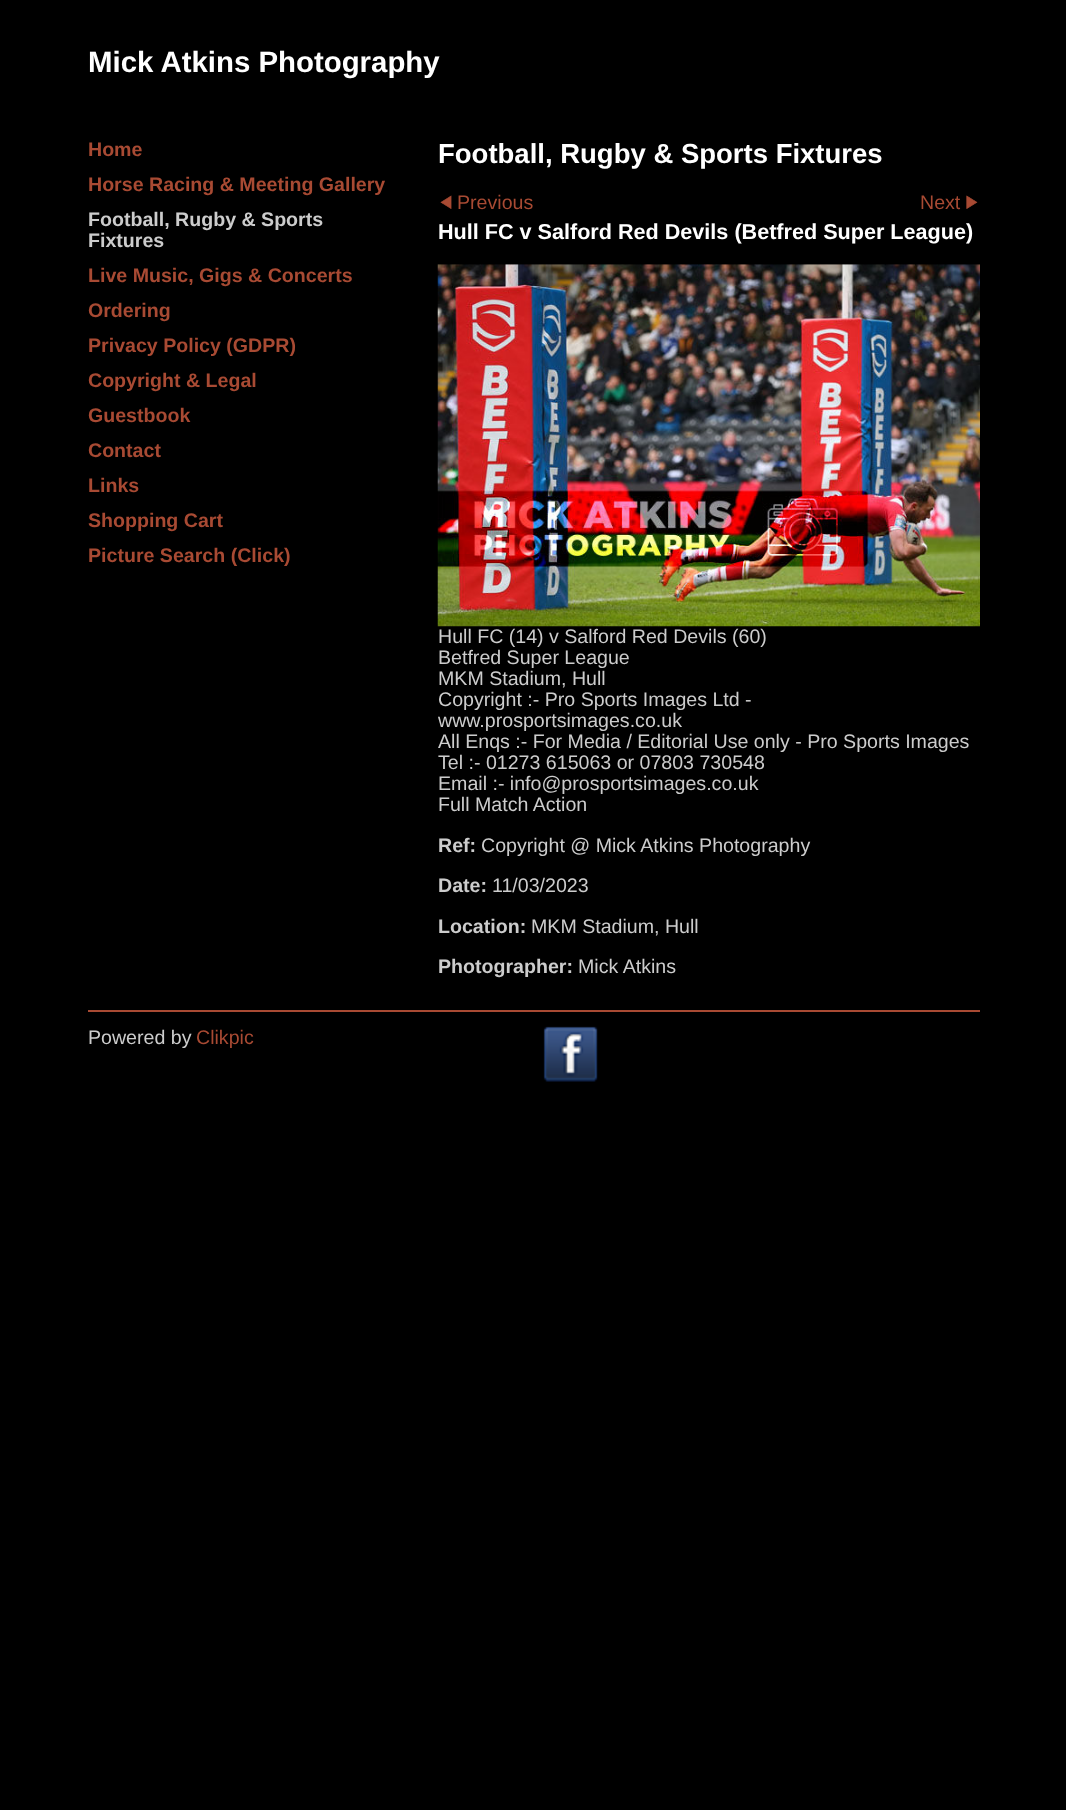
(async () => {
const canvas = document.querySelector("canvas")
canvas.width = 1066
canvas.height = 1810
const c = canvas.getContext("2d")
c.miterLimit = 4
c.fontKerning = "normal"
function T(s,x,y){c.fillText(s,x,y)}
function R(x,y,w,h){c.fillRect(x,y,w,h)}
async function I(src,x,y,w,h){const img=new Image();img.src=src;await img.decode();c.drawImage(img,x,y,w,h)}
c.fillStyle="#000"
R(0,0,1066,1810)
c.font="bold 29.4px Liberation Sans"
c.fillStyle="#fff"
T("Mick Atkins Photography",88,72)
c.font="bold 19.6px Liberation Sans"
c.fillStyle="#a84a33"
T("Home",88,156)
T("Horse Racing & Meeting Gallery",88,191)
c.fillStyle="#ccc"
T("Football, Rugby & Sports",88,226)
T("Fixtures",88,247)
c.fillStyle="#a84a33"
T("Live Music, Gigs & Concerts",88,282)
T("Ordering",88,317)
T("Privacy Policy (GDPR)",88,352)
T("Copyright & Legal",88,387)
T("Guestbook",88,422)
T("Contact",88,457)
T("Links",88,492)
T("Shopping Cart",88,527)
T("Picture Search (Click)",88,562)
c.font="bold 27.5px Liberation Sans"
c.fillStyle="#fff"
T("Football, Rugby & Sports Fixtures",438,163)
await I("1.png",440,195,12,14)
c.font="19.6px Liberation Sans"
c.fillStyle="#a84a33"
T("Previous",457,209)
T("Next",920,209)
await I("2.png",966,195,12,14)
c.font="bold 21.6px Liberation Sans"
c.fillStyle="#fff"
T("Hull FC v Salford Red Devils (Betfred Super League)",438,239)
await I("3.png",437,264,543,363)
c.font="19.6px Liberation Sans"
c.fillStyle="#ccc"
T("Hull FC (14) v Salford Red Devils (60)",438,643)
T("Betfred Super League",438,664)
T("MKM Stadium, Hull",438,685)
T("Copyright :- Pro Sports Images Ltd -",438,706)
T("www.prosportsimages.co.uk",438,727)
T("All Enqs :- For Media / Editorial Use only - Pro Sports Images",438,748)
T("Tel :- 01273 615063 or 07803 730548",438,769)
T("Email :- info@prosportsimages.co.uk",438,790)
T("Full Match Action",438,811)
c.font="bold 19.6px Liberation Sans"
T("Ref:",438,852)
c.font="19.6px Liberation Sans"
T("Copyright @ Mick Atkins Photography",481,852)
c.font="bold 19.6px Liberation Sans"
T("Date:",438,892)
c.font="19.6px Liberation Sans"
T("11/03/2023",492,892)
c.font="bold 19.6px Liberation Sans"
T("Location:",438,933)
c.font="19.6px Liberation Sans"
T("MKM Stadium, Hull",531,933)
c.font="bold 19.6px Liberation Sans"
T("Photographer:",438,973)
c.font="19.6px Liberation Sans"
T("Mick Atkins",578,973)
c.fillStyle="#a84a33"
R(88,1010,892,2)
c.fillStyle="#ccc"
T("Powered by",88,1044)
c.fillStyle="#a84a33"
T("Clikpic",196,1044)
await I("4.png",543,1026,55,56)
})()
